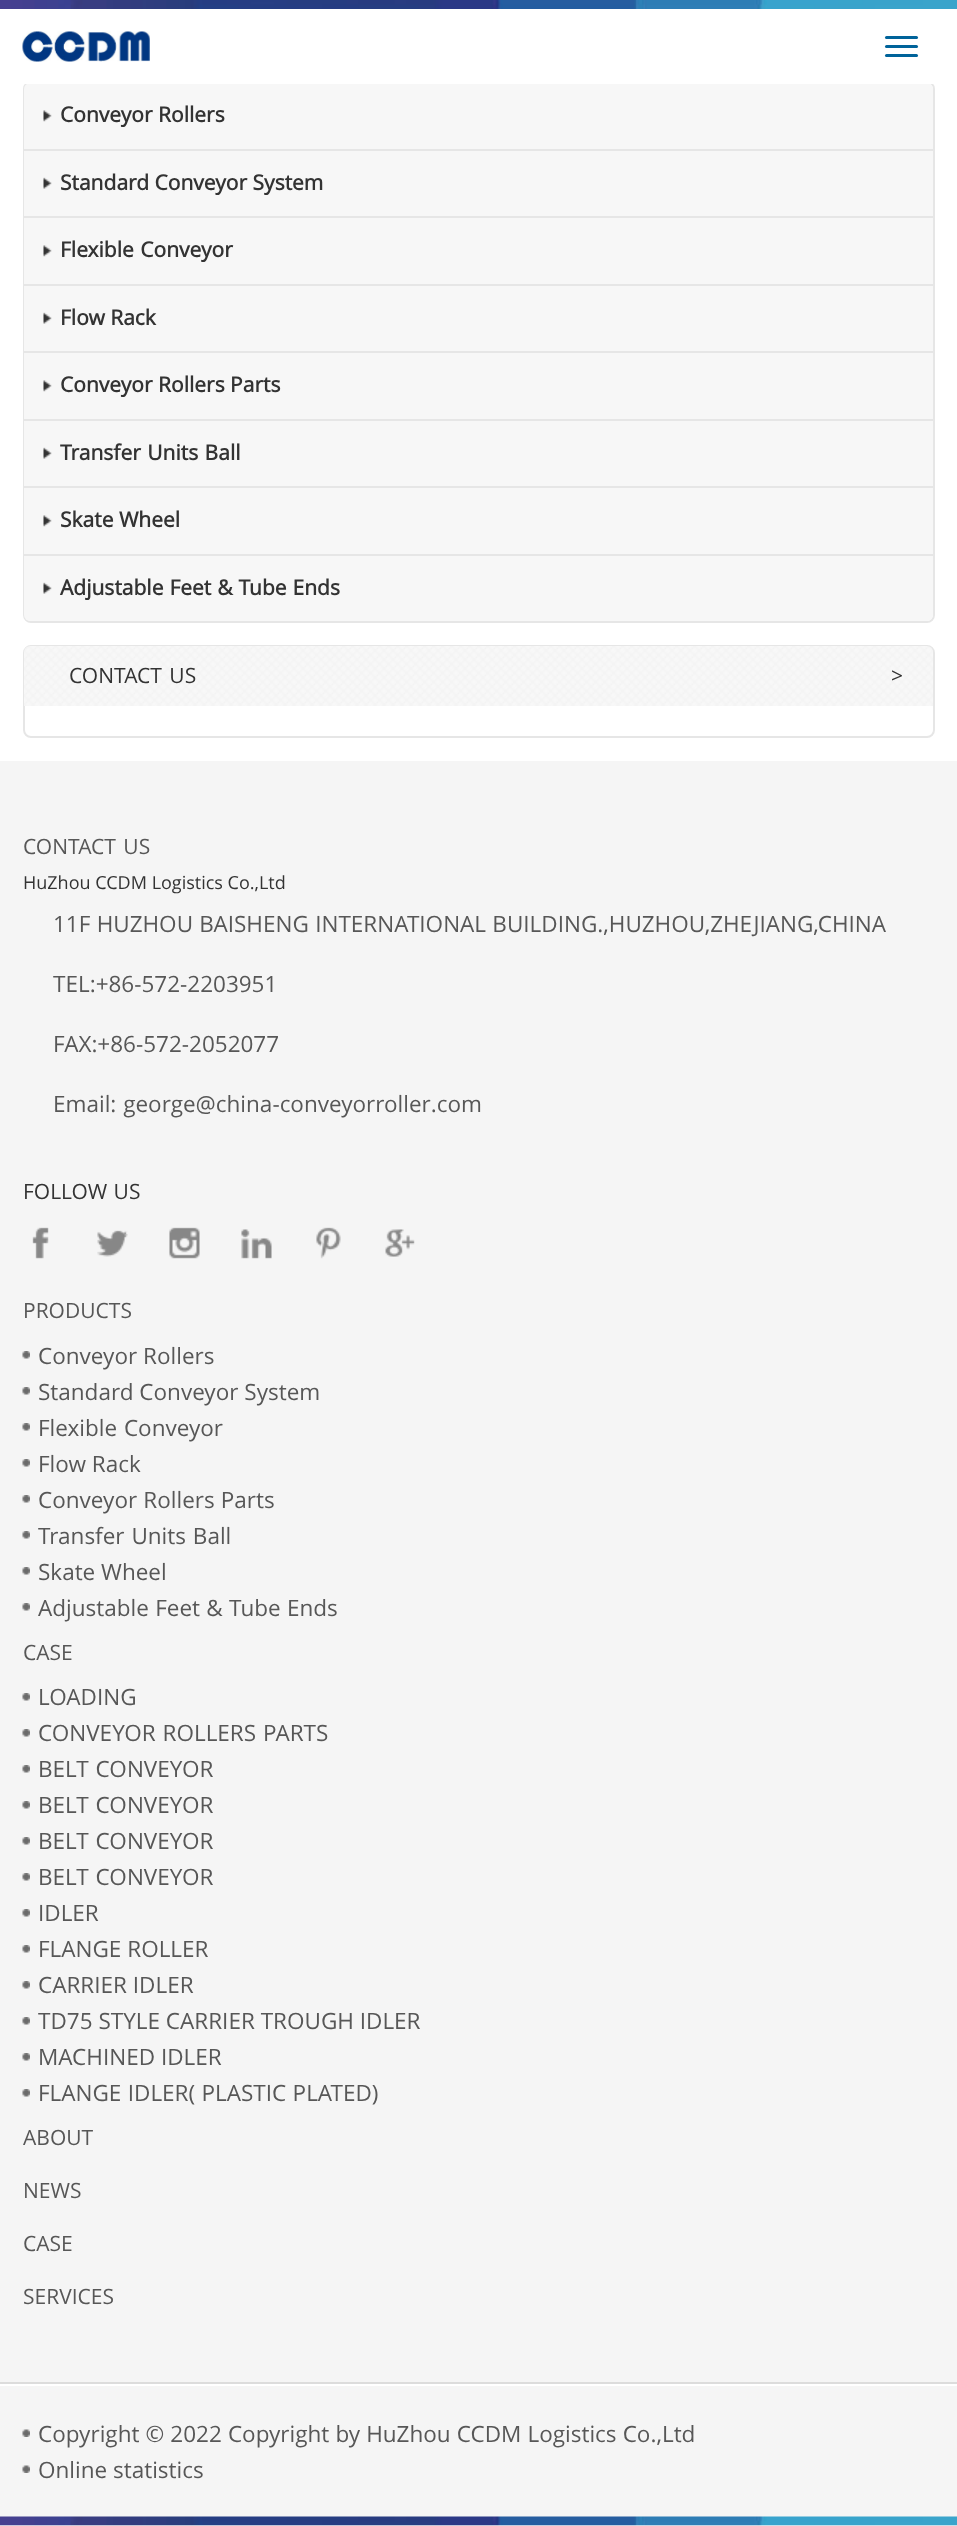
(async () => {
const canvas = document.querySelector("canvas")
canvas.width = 957
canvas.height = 2526
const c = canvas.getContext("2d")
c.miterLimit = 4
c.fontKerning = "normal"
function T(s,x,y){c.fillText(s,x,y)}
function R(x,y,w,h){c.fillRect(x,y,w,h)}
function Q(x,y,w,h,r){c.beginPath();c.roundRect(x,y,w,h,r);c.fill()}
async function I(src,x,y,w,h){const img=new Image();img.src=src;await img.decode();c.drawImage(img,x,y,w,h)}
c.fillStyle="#fff"
R(0,0,957,2526)
c.beginPath()
c.roundRect(24,82,910,540,7)
c.strokeStyle="#e6e6e6"
c.lineWidth=2
c.stroke()
c.fillStyle="#f7f7f7"
c.beginPath()
c.roundRect(24,83,909,66,[6,6,0,0])
c.fill()
c.fillStyle="#fff"
R(25,81,908,3)
await I("1.png",0,0,957,9)
await I("2.png",22,31,128,31)
c.fillStyle="#00639a"
Q(885,36,33,3,1.5)
Q(885,45,33,3,1.5)
Q(885,54,33,3,1.5)
await I("3.png",43,110,9,12)
c.font="bold 21px Open Sans"
c.fillStyle="#333"
T("Conveyor Rollers",60,122)
c.fillStyle="#f7f7f7"
R(24,151,909,65)
c.fillStyle="#e6e6e6"
R(24,149,909,2)
await I("4.png",43,177,9,12)
c.fillStyle="#333"
T("Standard Conveyor System",60,190)
c.fillStyle="#f7f7f7"
R(24,218,909,66)
c.fillStyle="#e6e6e6"
R(24,216,909,2)
await I("3.png",43,245,9,12)
c.wordSpacing="1px"
c.fillStyle="#333"
T("Flexible Conveyor",60,257)
c.fillStyle="#f7f7f7"
R(24,286,909,65)
c.fillStyle="#e6e6e6"
R(24,284,909,2)
await I("4.png",43,312,9,12)
c.wordSpacing="0px"
c.fillStyle="#333"
T("Flow Rack",60,325)
c.fillStyle="#f7f7f7"
R(24,353,909,66)
c.fillStyle="#e6e6e6"
R(24,351,909,2)
await I("3.png",43,380,9,12)
c.fillStyle="#333"
T("Conveyor Rollers Parts",60,392)
c.fillStyle="#f7f7f7"
R(24,421,909,65)
c.fillStyle="#e6e6e6"
R(24,419,909,2)
await I("4.png",43,447,9,12)
c.wordSpacing="1px"
c.fillStyle="#333"
T("Transfer Units Ball",60,460)
c.fillStyle="#f7f7f7"
R(24,488,909,66)
c.fillStyle="#e6e6e6"
R(24,486,909,2)
await I("3.png",43,515,9,12)
c.wordSpacing="0px"
c.fillStyle="#333"
T("Skate Wheel",60,527)
c.fillStyle="#f7f7f7"
c.beginPath()
c.roundRect(24,554,909,67,[0,0,6,6])
c.fill()
c.fillStyle="#e6e6e6"
R(24,554,909,2)
await I("4.png",43,582,9,12)
c.wordSpacing="0.5px"
c.fillStyle="#333"
T("Adjustable Feet & Tube Ends",60,595)
c.beginPath()
c.roundRect(24,646,910,91,7)
c.stroke()
await I("5.png",24,646,909,60)
c.wordSpacing="2px"
c.font="21px Open Sans"
T("CONTACT US",69,683)
c.wordSpacing="0px"
T(">",891,683)
c.fillStyle="#f5f5f5"
R(0,761,957,1765)
c.wordSpacing="2px"
c.fillStyle="#575757"
T("CONTACT US",23,854)
c.wordSpacing="0px"
c.font="18px Open Sans"
c.fillStyle="#333"
T("HuZhou CCDM Logistics Co.,Ltd",23,889)
c.wordSpacing="0.5px"
c.font="22.5px Open Sans"
c.fillStyle="#575757"
T("11F HUZHOU BAISHENG INTERNATIONAL BUILDING.,HUZHOU,ZHEJIANG,CHINA",53,932)
c.wordSpacing="0px"
T("TEL:+86-572-2203951",53,992)
T("FAX:+86-572-2052077",53,1052)
c.wordSpacing="1px"
T("Email: george@china-conveyorroller.com",53,1112)
c.font="21px Open Sans"
c.fillStyle="#333"
T("FOLLOW US",23,1199)
await I("6.png",32,1227,17,32)
await I("7.png",97,1230,31,27)
await I("8.png",169,1227,31,32)
await I("9.png",241,1229,31,30)
await I("10.png",316,1227,25,32)
await I("11.png",385,1229,30,28)
c.wordSpacing="0px"
c.fillStyle="#575757"
T("PRODUCTS",23,1318)
await I("12.png",22,1351,8,8)
c.font="22.5px Open Sans"
T("Conveyor Rollers",38,1364)
await I("12.png",22,1387,8,8)
T("Standard Conveyor System",38,1400)
await I("12.png",22,1423,8,8)
c.wordSpacing="1px"
T("Flexible Conveyor",38,1436)
await I("12.png",22,1459,8,8)
c.wordSpacing="0px"
T("Flow Rack",38,1472)
await I("12.png",22,1495,8,8)
c.wordSpacing="0.25px"
T("Conveyor Rollers Parts",38,1508)
await I("12.png",22,1531,8,8)
c.wordSpacing="1px"
T("Transfer Units Ball",38,1544)
await I("12.png",22,1567,8,8)
c.wordSpacing="0px"
T("Skate Wheel",38,1580)
await I("12.png",22,1603,8,8)
c.wordSpacing="0.5px"
T("Adjustable Feet & Tube Ends",38,1616)
c.wordSpacing="0px"
c.font="21px Open Sans"
T("CASE",23,1660)
await I("12.png",22,1693,8,8)
c.font="22.5px Open Sans"
T("LOADING",38,1705)
await I("12.png",22,1729,8,8)
c.wordSpacing="1px"
T("CONVEYOR ROLLERS PARTS",38,1741)
await I("12.png",22,1765,8,8)
T("BELT CONVEYOR",38,1777)
await I("12.png",22,1801,8,8)
T("BELT CONVEYOR",38,1813)
await I("12.png",22,1837,8,8)
T("BELT CONVEYOR",38,1849)
await I("12.png",22,1873,8,8)
T("BELT CONVEYOR",38,1885)
await I("12.png",22,1909,8,8)
c.wordSpacing="0px"
T("IDLER",38,1921)
await I("12.png",22,1945,8,8)
T("FLANGE ROLLER",38,1957)
await I("12.png",22,1981,8,8)
T("CARRIER IDLER",38,1993)
await I("12.png",22,2017,8,8)
T("TD75 STYLE CARRIER TROUGH IDLER",38,2029)
await I("12.png",22,2053,8,8)
T("MACHINED IDLER",38,2065)
await I("12.png",22,2089,8,8)
c.wordSpacing="0.5px"
T("FLANGE IDLER( PLASTIC PLATED)",38,2101)
c.wordSpacing="0px"
c.font="21px Open Sans"
T("ABOUT",23,2145)
T("NEWS",23,2198)
T("CASE",23,2251)
T("SERVICES",23,2304)
c.fillStyle="#dcdcdc"
R(0,2382,957,2)
c.fillStyle="#fff"
R(0,2384,957,2)
await I("13.png",22,2429,8,8)
c.wordSpacing="0.25px"
c.font="22.5px Open Sans"
c.fillStyle="#575757"
T("Copyright © 2022 Copyright by HuZhou CCDM Logistics Co.,Ltd",38,2442)
await I("13.png",22,2465,8,8)
c.wordSpacing="0px"
T("Online statistics",38,2478)
await I("14.png",0,2516,957,10)
})()
